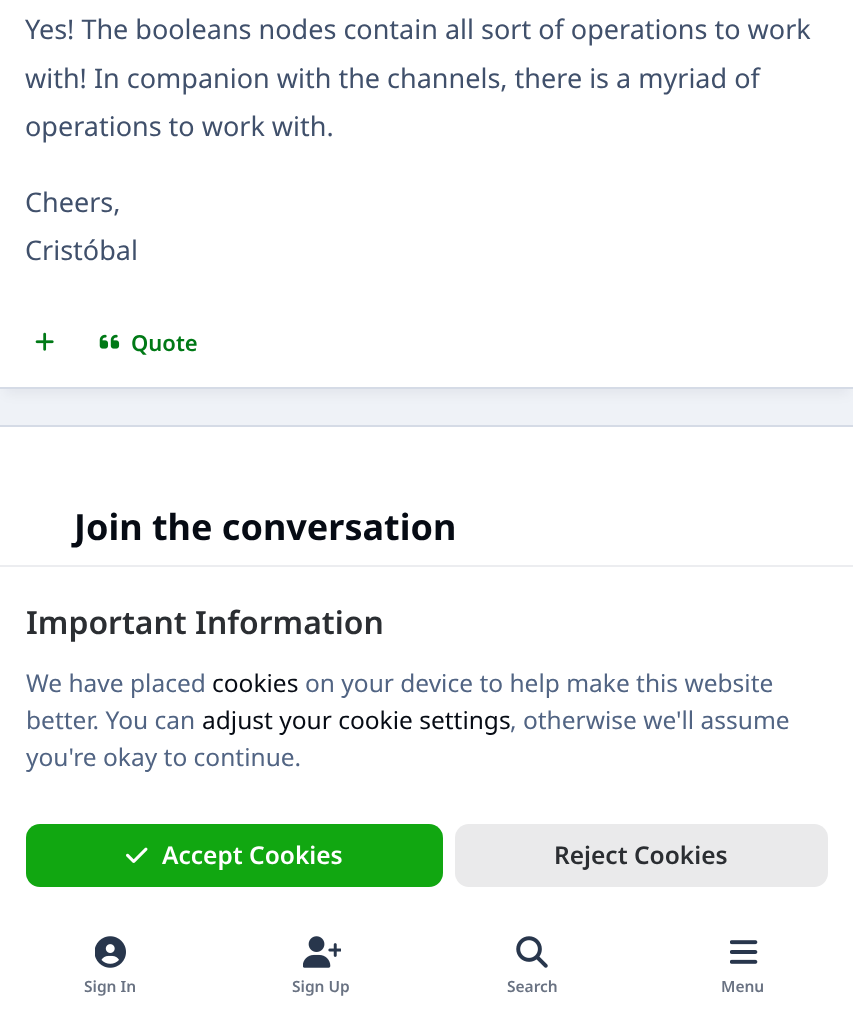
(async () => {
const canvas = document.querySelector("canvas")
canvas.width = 853
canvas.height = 1014
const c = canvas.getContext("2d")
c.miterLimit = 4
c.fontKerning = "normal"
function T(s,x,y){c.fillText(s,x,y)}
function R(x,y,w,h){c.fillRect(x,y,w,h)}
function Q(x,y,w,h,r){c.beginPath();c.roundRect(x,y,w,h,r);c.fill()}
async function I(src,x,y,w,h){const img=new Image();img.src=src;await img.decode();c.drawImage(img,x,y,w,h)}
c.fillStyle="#eff2f7"
R(0,0,853,1014)
c.fillStyle="#01030a0d"
c.filter="blur(6px)"
c.beginPath()
c.rect(5,-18,844,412)
c.fill()
c.filter="none"
c.fillStyle="#fff"
R(0,0,853,387)
c.fillStyle="#d5dbe6"
R(0,387,853,2)
c.font="27px Noto Sans"
c.fillStyle="#40506b"
T("Yes! The booleans nodes contain all sort of operations to work",25,39)
T("with! In companion with the channels, there is a myriad of",25,88)
T("operations to work with.",25,136)
T("Cheers,",25,212)
T("Cristóbal",25,260)
await I("1.png",35,332,19,19)
await I("2.png",99,334,21,15)
c.font="600 22px Noto Sans"
c.fillStyle="#007916"
T("Quote",131,351)
c.fillStyle="#fff"
R(0,427,853,140)
c.fillStyle="#d5dbe6"
R(0,425,853,2)
c.font="bold 36px Noto Sans"
c.fillStyle="#060b14"
T("Join the conversation",74,540)
c.fillStyle="#40506b1a"
R(0,565,853,2)
c.fillStyle="#fff"
R(0,567,853,447)
c.font="600 31.9px Noto Sans"
c.fillStyle="#2b2e32"
T("Important Information",26,634)
c.font="24.5px Noto Sans"
c.fillStyle="#516483"
T("We have placed",26,692)
c.fillStyle="#060b14"
T("cookies",212,692)
c.fillStyle="#516483"
T("on your device to help make this website",305,692)
T("better. You can",26,729)
c.fillStyle="#060b14"
T("adjust your cookie settings",202,729)
c.fillStyle="#516483"
T(", otherwise we'll assume",510,729)
T("you're okay to continue.",26,766)
c.fillStyle="#11a711"
Q(26,824,417,63,14)
await I("3.png",126,847,22,16)
c.font="600 24.5px Noto Sans"
c.fillStyle="#fff"
T("Accept Cookies",162,864)
c.fillStyle="#eaeaeb"
Q(455,824,373,63,14)
c.fillStyle="#2b2e32"
T("Reject Cookies",554,864)
await I("4.png",95,936,31,32)
c.font="600 15.5px Noto Sans"
c.fillStyle="#697282"
T("Sign In",84,992)
await I("5.png",303,936,38,32)
T("Sign Up",292,992)
await I("6.png",516,936,32,32)
T("Search",507,992)
await I("7.png",730,940,28,24)
T("Menu",721,992)
})()
